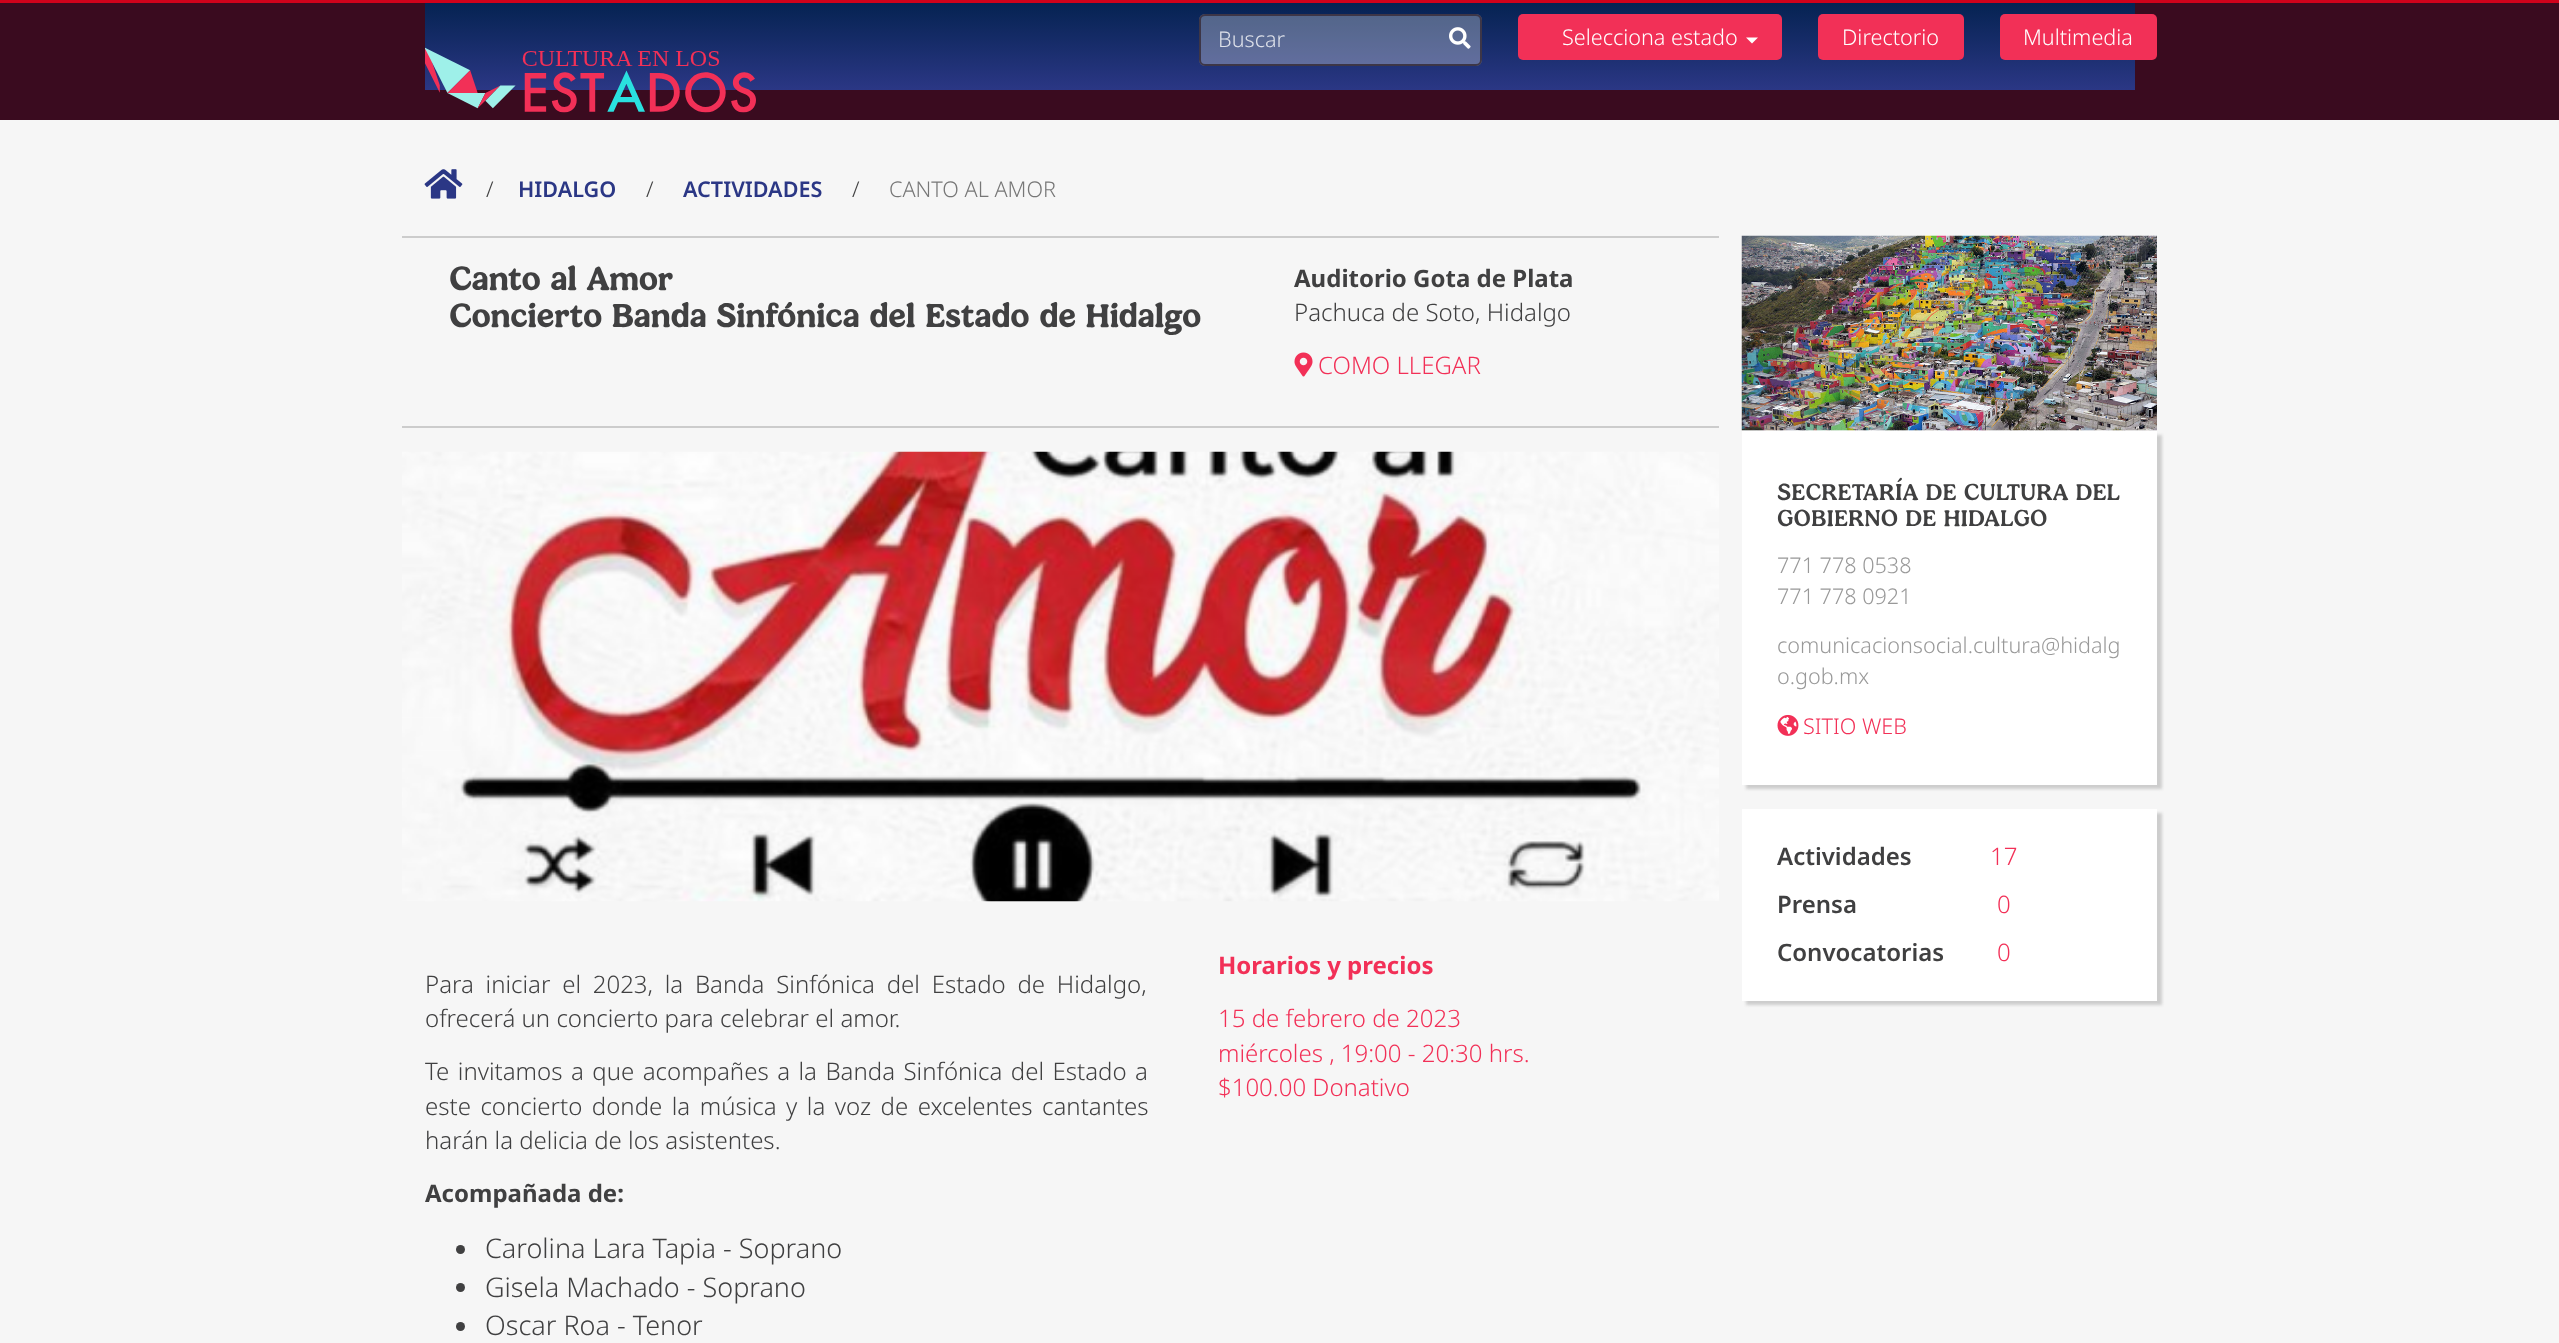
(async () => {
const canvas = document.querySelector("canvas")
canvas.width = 2559
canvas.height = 1343
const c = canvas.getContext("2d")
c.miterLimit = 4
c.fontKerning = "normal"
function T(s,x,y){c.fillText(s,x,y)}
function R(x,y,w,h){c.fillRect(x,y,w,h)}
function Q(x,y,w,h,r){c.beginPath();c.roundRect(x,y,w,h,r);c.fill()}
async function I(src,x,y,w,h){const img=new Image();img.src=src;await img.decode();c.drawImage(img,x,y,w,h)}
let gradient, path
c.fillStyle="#f6f6f6"
R(0,0,2559,1343)
c.fillStyle="#d0021b"
R(0,0,2559,3)
c.fillStyle="#3a0b1f"
R(0,3,2559,117)
gradient = c.createLinearGradient(1280,0,1280,90)
gradient.addColorStop(0,"#042250")
gradient.addColorStop(1,"#2b3785")
c.fillStyle = gradient
R(425,3,1710,87)
c.fillStyle="#fcfcfc4d"
Q(1199,14,283,52,6)
c.fillStyle="#00000012"
path = new Path2D("M1204 16h272c2 0 4 3 4 5v42c1-1 1-2 1-3v-40c0-3-2-5-5-5h-271c-3 0-5 2-5 5v1c0-2 2-5 4-5z")
c.fill(path)
c.beginPath()
c.roundRect(1200,15,281,50,5)
c.strokeStyle="#3d3647"
c.lineWidth=2
c.stroke()
c.font="300 21.6px Noto Sans"
c.fillStyle="#dee1ea"
T("Buscar",1218,47)
await I("1.png",1449,27,22,22)
c.fillStyle="#f23057"
Q(1518,14,264,46,5)
c.fillStyle="#fff"
T("Selecciona estado",1562,45)
path = new Path2D("M1746 37.5h12l-6 6z")
c.fill(path)
c.fillStyle="#f23057"
Q(1818,14,146,46,5)
c.fillStyle="#fff"
T("Directorio",1842,45)
c.fillStyle="#f23057"
Q(2000,14,157,46,5)
c.fillStyle="#fff"
T("Multimedia",2023,45)
await I("2.png",425,47,331,66)
await I("3.png",424,169,39,30)
c.fillStyle="#404041"
T("/",486,197)
c.font="600 21.6px Noto Sans"
c.fillStyle="#2b3785"
T("HIDALGO",518,197)
c.font="300 21.6px Noto Sans"
c.fillStyle="#404041"
T("/",646,197)
c.font="600 21.6px Noto Sans"
c.fillStyle="#2b3785"
T("ACTIVIDADES",683,197)
c.font="300 21.6px Noto Sans"
c.fillStyle="#404041"
T("/",852,197)
c.fillStyle="#777"
T("CANTO AL AMOR",889,197)
c.fillStyle="#ccc"
R(402,236,1317,2)
R(402,426,1317,2)
c.font="bold 33.6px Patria"
c.fillStyle="#404041"
T("Canto al Amor",449,290)
T("Concierto Banda Sinfónica del Estado de Hidalgo",449,327)
c.font="bold 24px Noto Sans"
T("Auditorio Gota de Plata",1294,287)
c.font="300 24px Noto Sans"
T("Pachuca de Soto, Hidalgo",1294,321)
await I("4.png",1294,352,19,25)
c.fillStyle="#f23057"
T("COMO LLEGAR",1318,374)
await I("5.png",402,451,1317,451)
c.wordSpacing="5.5px"
c.fillStyle="#404041"
T("Para iniciar el 2023, la Banda Sinfónica del Estado de Hidalgo,",425,993)
c.wordSpacing="0px"
T("ofrecerá un concierto para celebrar el amor.",425,1027)
c.wordSpacing="2.25px"
T("Te invitamos a que acompañes a la Banda Sinfónica del Estado a",425,1080)
c.wordSpacing="3.25px"
T("este concierto donde la música y la voz de excelentes cantantes",425,1115)
c.wordSpacing="0px"
T("harán la delicia de los asistentes.",425,1149)
c.font="bold 24px Noto Sans"
T("Acompañada de:",425,1202)
c.beginPath()
c.arc(460.5,1249.5,4.5,0,7)
c.fill()
c.font="300 27px Noto Sans"
T("Carolina Lara Tapia - Soprano",485,1258)
c.beginPath()
c.arc(460.5,1287.5,4.5,0,7)
c.fill()
T("Gisela Machado - Soprano",485,1297)
c.beginPath()
c.arc(460.5,1326.5,4.5,0,7)
c.fill()
T("Oscar Roa - Tenor",485,1335)
c.font="bold 24px Noto Sans"
c.fillStyle="#f23057"
T("Horarios y precios",1218,974)
c.font="300 24px Noto Sans"
T("15 de febrero de 2023",1218,1027)
T("miércoles , 19:00 - 20:30 hrs.",1218,1062)
T("$100.00 Donativo",1218,1096)
c.fillStyle="#cdcdcd"
c.filter="blur(1.5px)"
c.beginPath()
c.rect(1746,435,416,354)
c.fill()
c.filter="none"
await I("6.png",1741,235,416,196)
c.fillStyle="#fff"
R(1742,431,415,354)
c.font="24px Patria"
c.fillStyle="#404041"
T("SECRETARÍA DE CULTURA DEL",1777,500)
T("GOBIERNO DE HIDALGO",1777,526)
c.font="300 21.6px Noto Sans"
c.fillStyle="#999"
T("771 778 0538",1777,573)
T("771 778 0921",1777,604)
T("comunicacionsocial.cultura@hidalg",1777,653)
T("o.gob.mx",1777,684)
await I("7.png",1777,714,22,22)
c.fillStyle="#f23057"
T("SITIO WEB",1803,734)
c.fillStyle="#cdcdcd"
c.filter="blur(1.5px)"
c.beginPath()
c.rect(1746,813,416,192)
c.fill()
c.filter="none"
c.fillStyle="#fff"
R(1742,809,415,192)
c.font="600 24px Noto Sans"
c.fillStyle="#404041"
T("Actividades",1777,865)
c.font="300 24px Noto Sans"
c.fillStyle="#f23057"
T("17",1990,865)
c.font="600 24px Noto Sans"
c.fillStyle="#404041"
T("Prensa",1777,913)
c.font="300 24px Noto Sans"
c.fillStyle="#f23057"
T("0",1997,913)
c.font="600 24px Noto Sans"
c.fillStyle="#404041"
T("Convocatorias",1777,961)
c.font="300 24px Noto Sans"
c.fillStyle="#f23057"
T("0",1997,961)
})()
